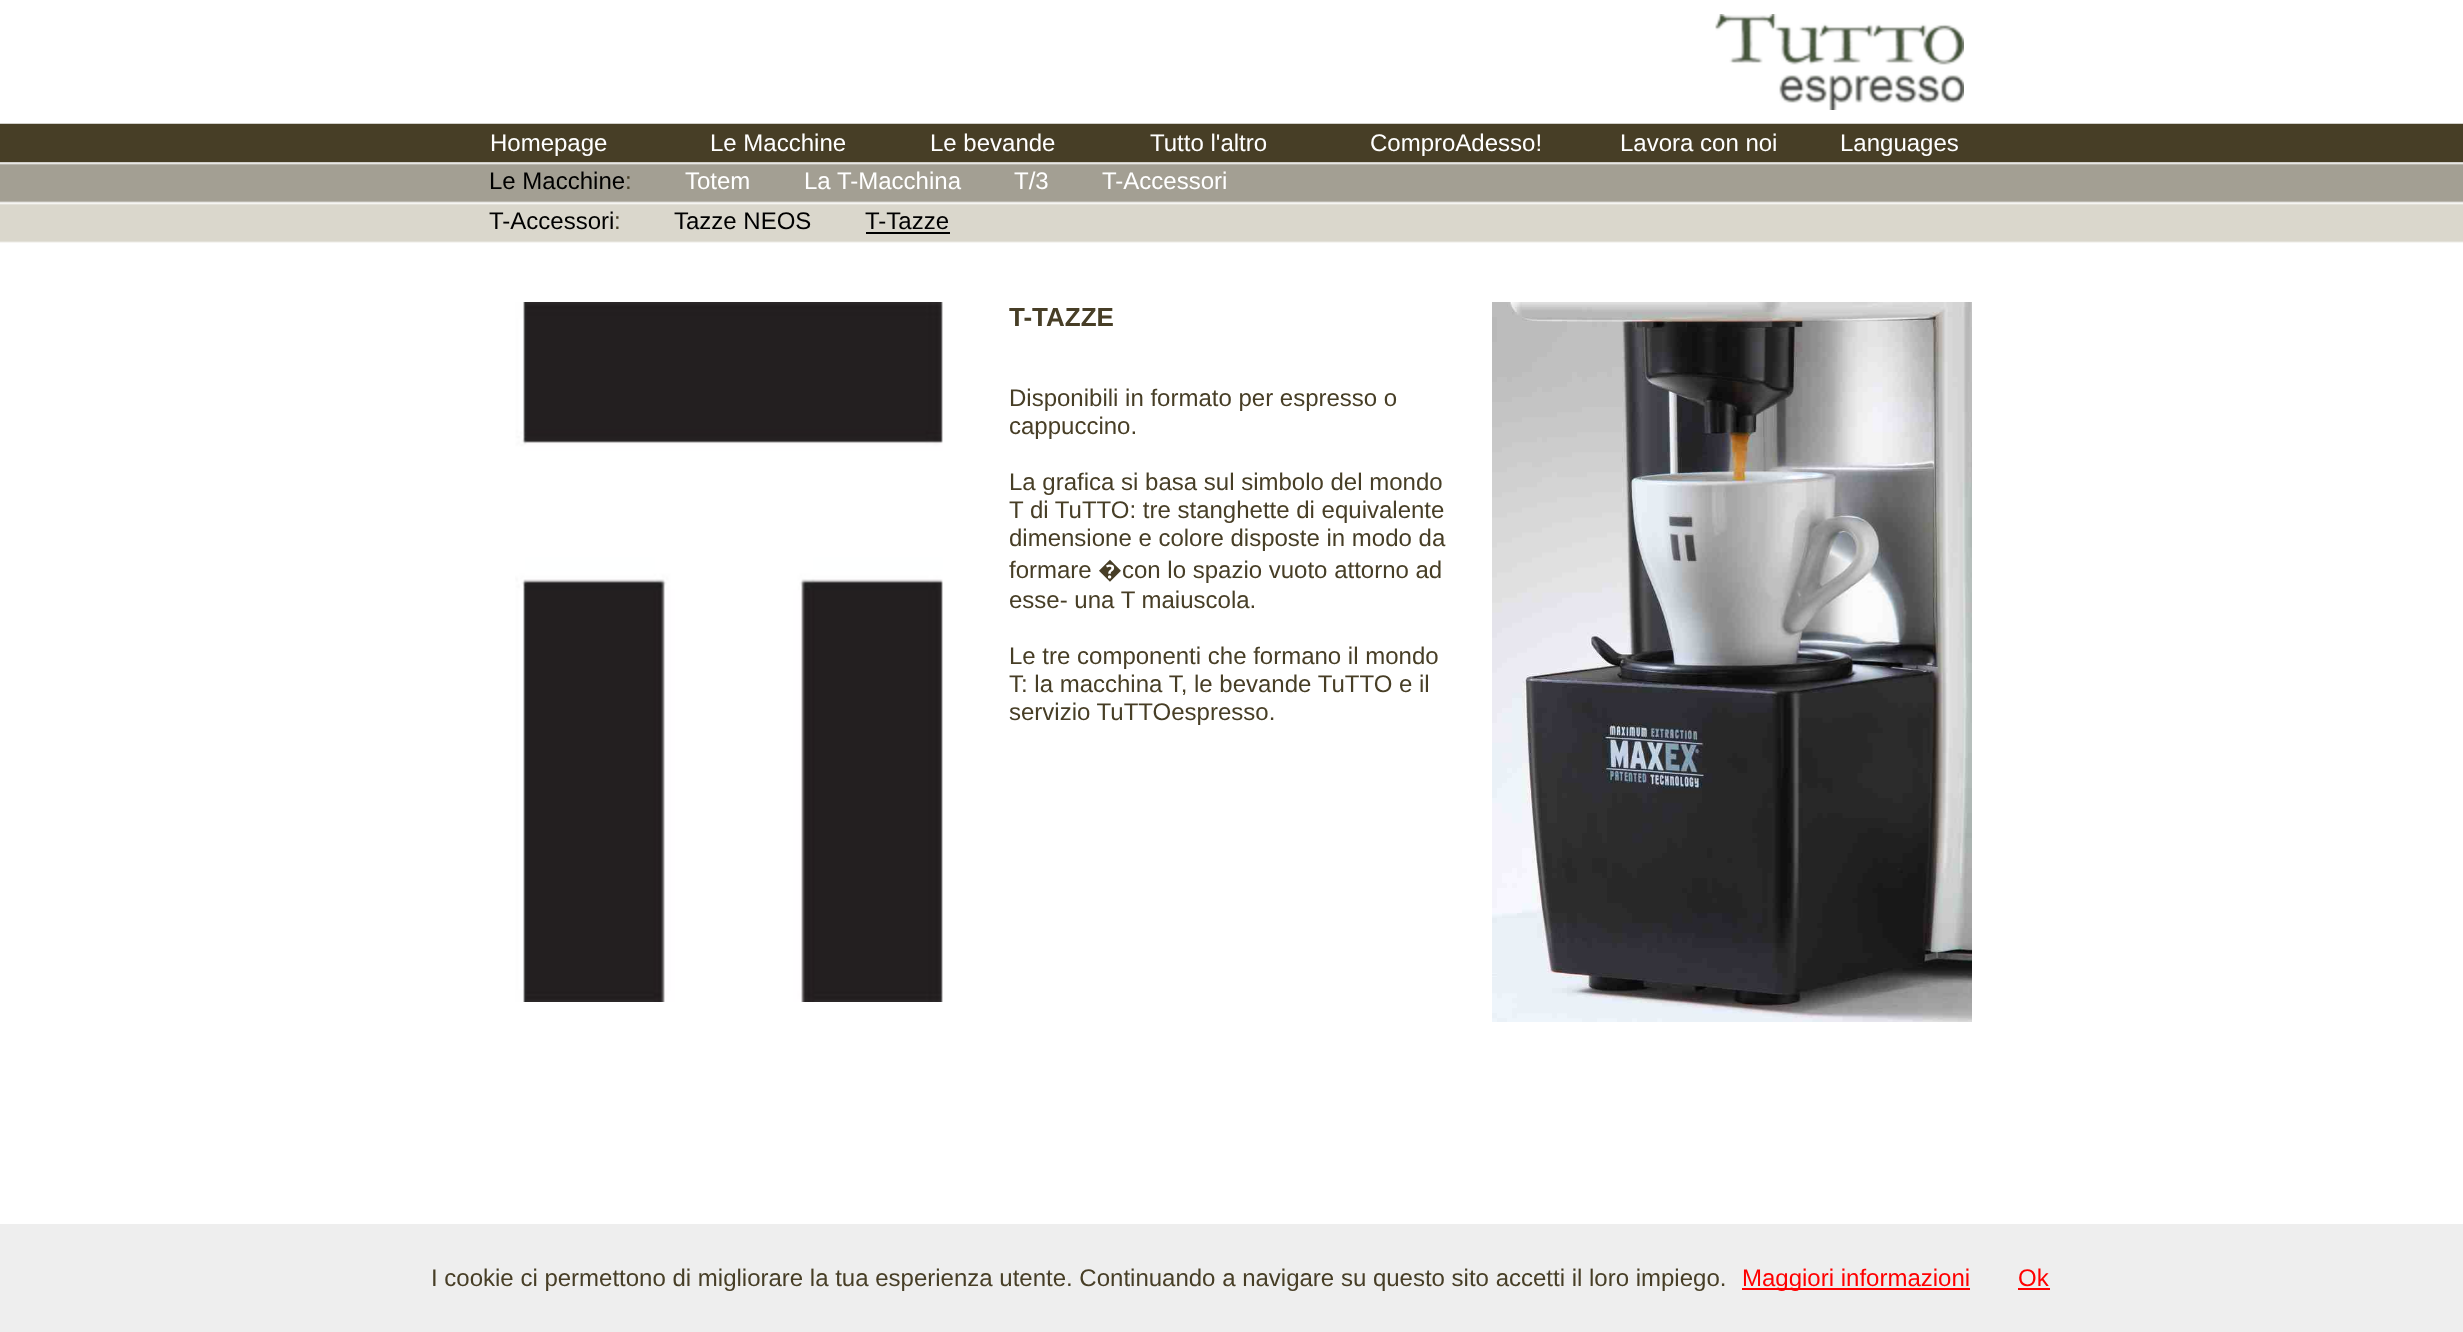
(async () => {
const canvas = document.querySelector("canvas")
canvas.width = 2463
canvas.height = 1332
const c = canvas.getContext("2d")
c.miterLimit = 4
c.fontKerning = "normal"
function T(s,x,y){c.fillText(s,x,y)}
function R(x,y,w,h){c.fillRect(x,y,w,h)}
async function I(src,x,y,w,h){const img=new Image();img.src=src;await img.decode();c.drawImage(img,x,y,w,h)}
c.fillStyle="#fff"
R(0,0,2463,1332)
await I("1.png",0,123,2463,120)
c.fillStyle="#473e26"
R(0,124,2463,38)
c.font="24px Liberation Sans"
c.fillStyle="#fff"
T("Homepage",490,151)
T("Le Macchine",710,151)
T("Le bevande",930,151)
T("Tutto l'altro",1150,151)
T("ComproAdesso!",1370,151)
T("Lavora con noi",1620,151)
T("Languages",1840,151)
await I("2.png",1715,14,249,96)
c.fillStyle="#000"
T("Le Macchine",489,189)
c.fillStyle="#473e26"
T(":",625,189)
c.fillStyle="#fff"
T("Totem",685,189)
T("La T-Macchina",804,189)
T("T/3",1014,189)
T("T-Accessori",1102,189)
c.fillStyle="#000"
T("T-Accessori",489,229)
c.fillStyle="#473e26"
T(":",614,229)
c.fillStyle="#000"
T("Tazze NEOS",674,229)
T("T-Tazze",865,229)
R(866,232,84,2)
await I("3.png",515,302,428,700)
c.font="bold 26px Liberation Sans"
c.fillStyle="#473e26"
T("T-TAZZE",1009,326)
c.font="24px Liberation Sans"
T("Disponibili in formato per espresso o",1009,406)
T("cappuccino.",1009,434)
T("La grafica si basa sul simbolo del mondo",1009,490)
T("T di TuTTO: tre stanghette di equivalente",1009,518)
T("dimensione e colore disposte in modo da",1009,546)
T("formare",1009,578)
c.font="24px Noto Sans"
T("�",1098,578)
c.font="24px Liberation Sans"
T("con lo spazio vuoto attorno ad",1122,578)
T("esse- una T maiuscola.",1009,608)
T("Le tre componenti che formano il mondo",1009,664)
T("T: la macchina T, le bevande TuTTO e il",1009,692)
T("servizio TuTTOespresso.",1009,720)
await I("4.png",1492,302,480,720)
c.fillStyle="#eee"
R(0,1224,2463,108)
c.fillStyle="#473e26"
T("I cookie ci permettono di migliorare la tua esperienza utente. Continuando a navigare su questo sito accetti il loro impiego.",431,1286)
c.fillStyle="#f00"
R(1742,1288,228,2)
T("Maggiori informazioni",1742,1286)
T("Ok",2018,1286)
R(2018,1288,32,2)
})()
